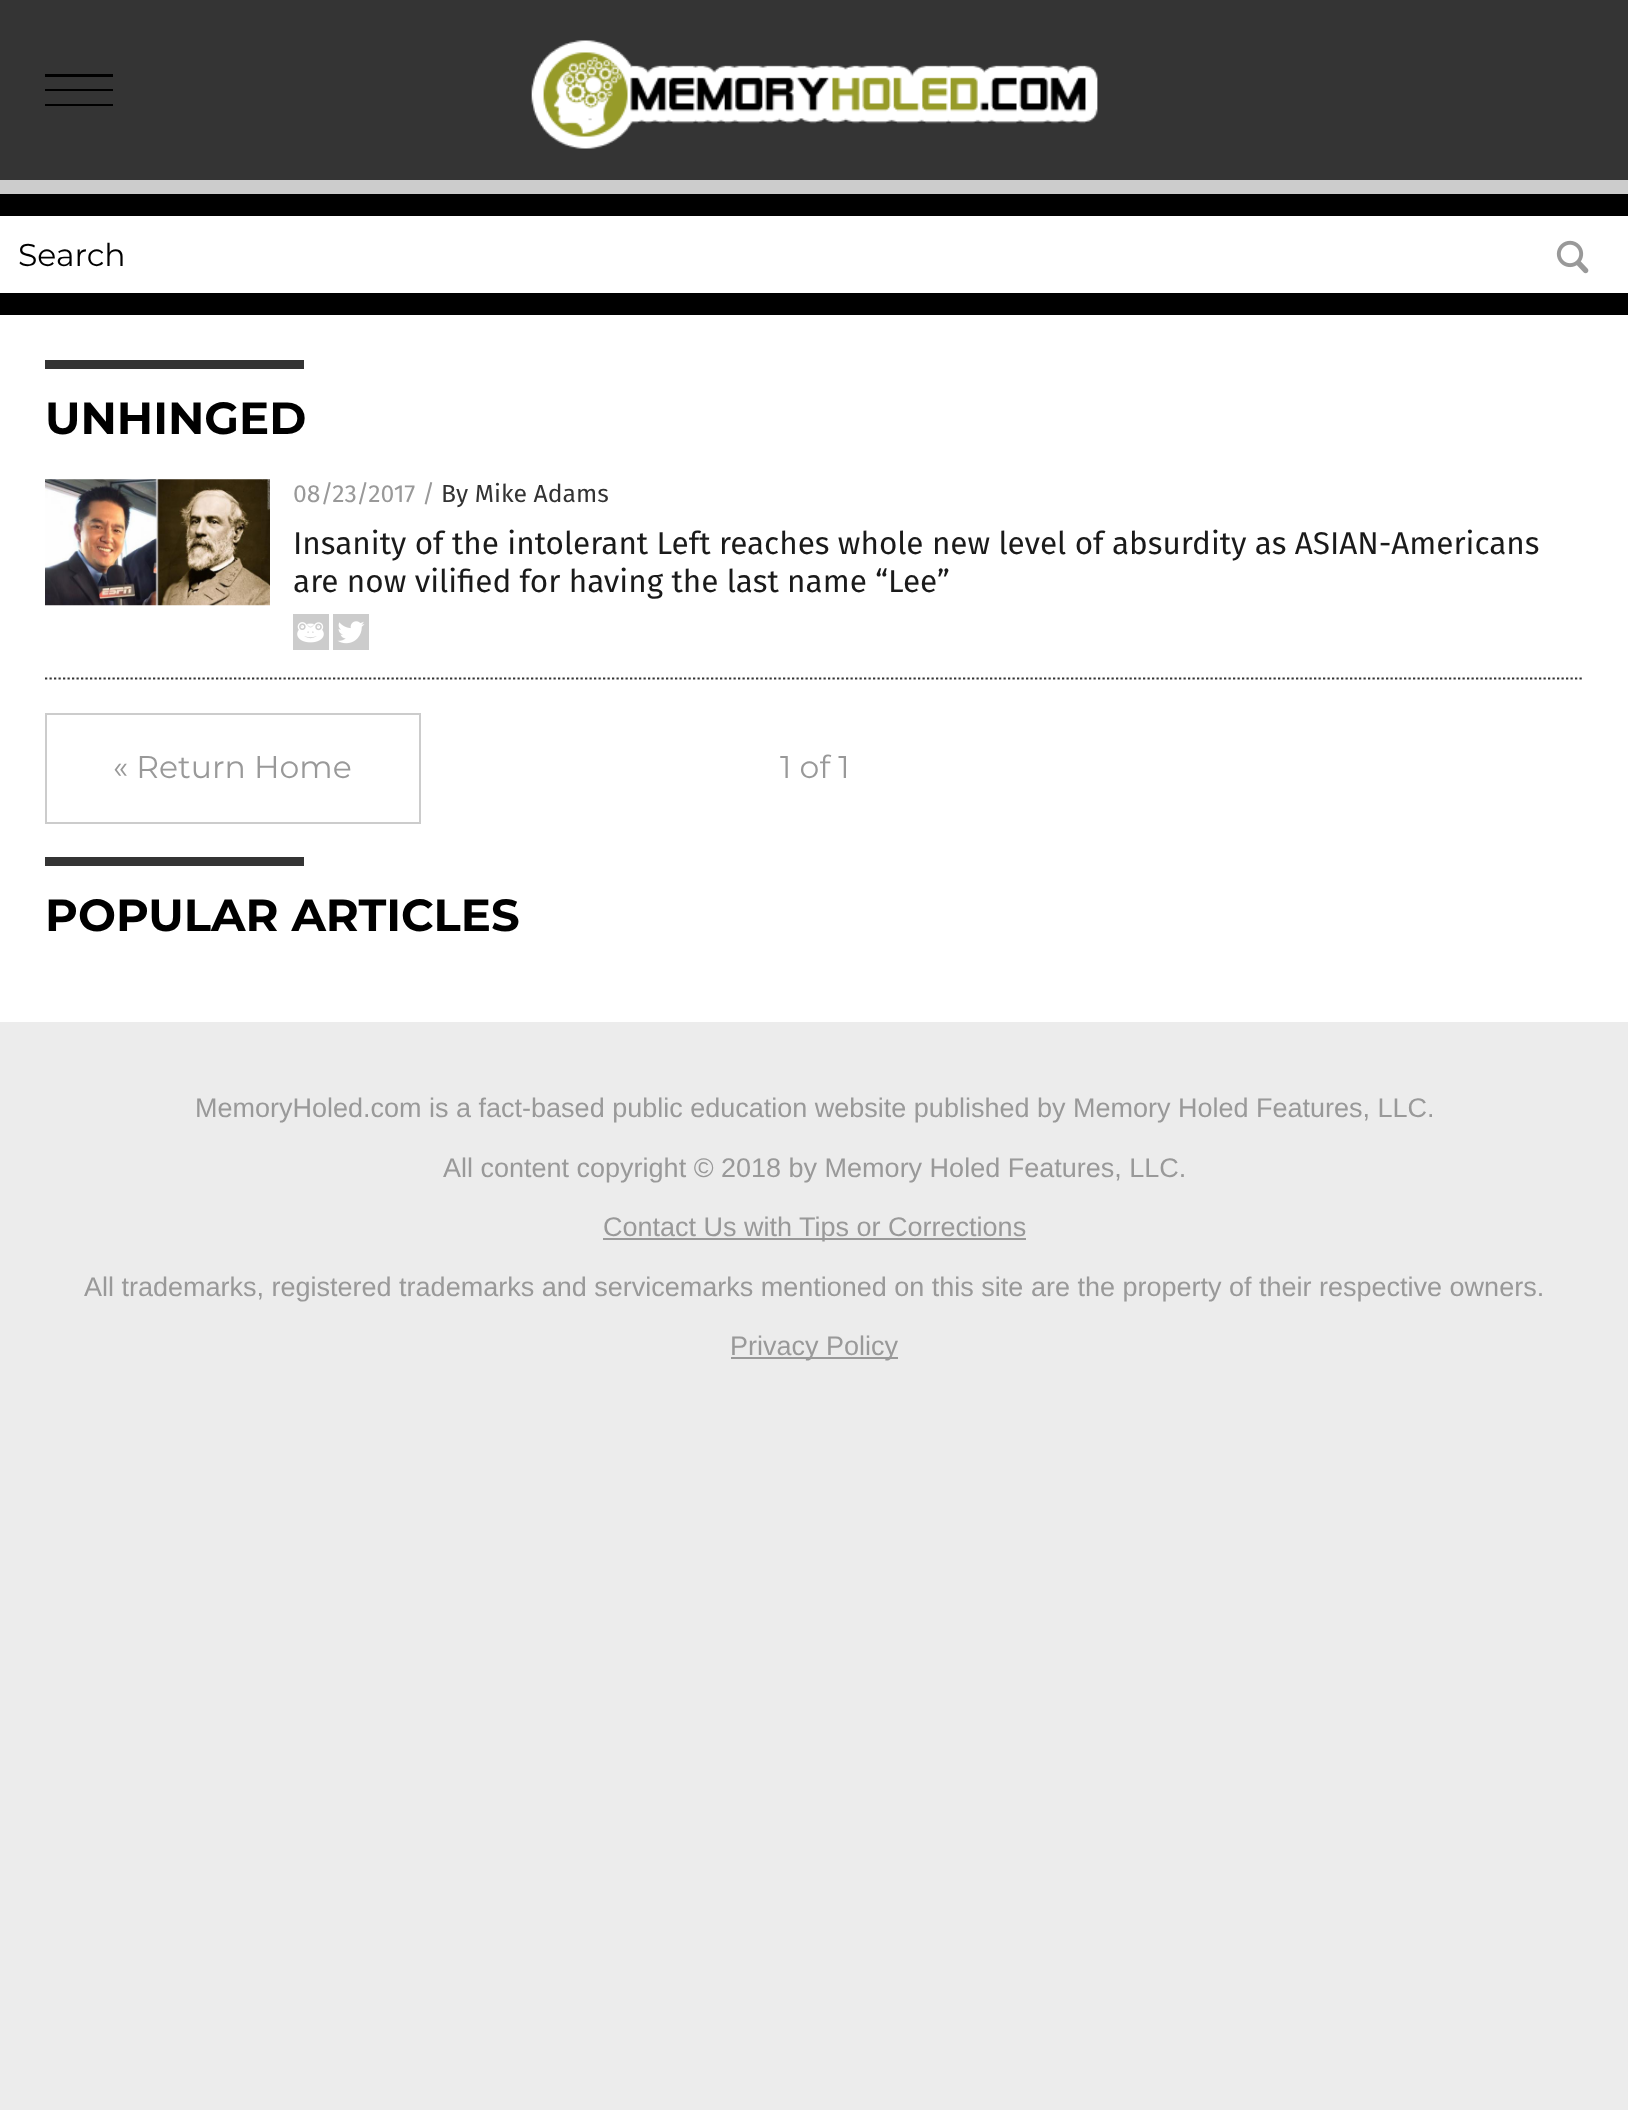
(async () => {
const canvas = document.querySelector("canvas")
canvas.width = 1628
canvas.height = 2110
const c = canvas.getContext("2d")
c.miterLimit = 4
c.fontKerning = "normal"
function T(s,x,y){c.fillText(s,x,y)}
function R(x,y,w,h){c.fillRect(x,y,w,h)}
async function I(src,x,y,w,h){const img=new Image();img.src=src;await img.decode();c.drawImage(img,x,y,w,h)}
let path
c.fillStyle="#ececec"
R(0,0,1628,2110)
c.fillStyle="#000"
R(0,194,1628,121)
c.fillStyle="#343434"
R(0,0,1628,180)
c.fillStyle="#000"
R(45,104,68,2)
R(45,89,68,2)
R(45,74,68,3)
await I("1.png",531,40,567,109)
c.fillStyle="#ccc"
R(0,180,1628,14)
c.fillStyle="#fff"
R(0,216,1628,77)
c.font="31.5px Montserrat"
c.fillStyle="#000"
T("Search",18,266)
await I("2.png",1556,240,33,34)
c.fillStyle="#fff"
R(0,315,1628,707)
c.fillStyle="#343434"
R(45,360,259,9)
c.font="bold 45px Montserrat"
c.fillStyle="#000"
T("UNHINGED",45,434)
path = new Path2D("M45 678.5h1539")
c.strokeStyle="#343434"
c.lineWidth=2.2
c.setLineDash([2.25,2.25])
c.stroke(path)
await I("3.png",45,479,225,127)
c.font="24.75px Fira Sans"
c.fillStyle="#999"
T("08/23/2017 /",293,502)
c.fillStyle="#333"
T("By Mike Adams",441,502)
c.font="31.5px Fira Sans"
c.fillStyle="#1a1a1a"
T("Insanity of the intolerant Left reaches whole new level of absurdity as ASIAN-Americans",293,554)
T("are now vilified for having the last name “Lee”",293,592)
await I("4.png",293,614,36,36)
await I("5.png",333,614,36,36)
c.strokeStyle="#ccc"
c.lineWidth=2
c.setLineDash([])
c.strokeRect(46,714,374,109)
c.font="31.5px Montserrat"
c.fillStyle="#999"
T("« Return Home",113,778)
T("1 of 1",780,778)
c.fillStyle="#343434"
R(45,857,259,9)
c.font="bold 45px Montserrat"
c.fillStyle="#000"
T("POPULAR ARTICLES",45,931)
c.font="27px Liberation Sans"
c.fillStyle="#999"
T("MemoryHoled.com is a fact-based public education website published by Memory Holed Features, LLC.",195,1117)
T("All content copyright © 2018 by Memory Holed Features, LLC.",443,1177)
R(603,1238,423,2)
T("Contact Us with Tips or Corrections",603,1236)
T("All trademarks, registered trademarks and servicemarks mentioned on this site are the property of their respective owners.",84,1296)
R(731,1357,167,2)
T("Privacy Policy",730,1355)
})()
